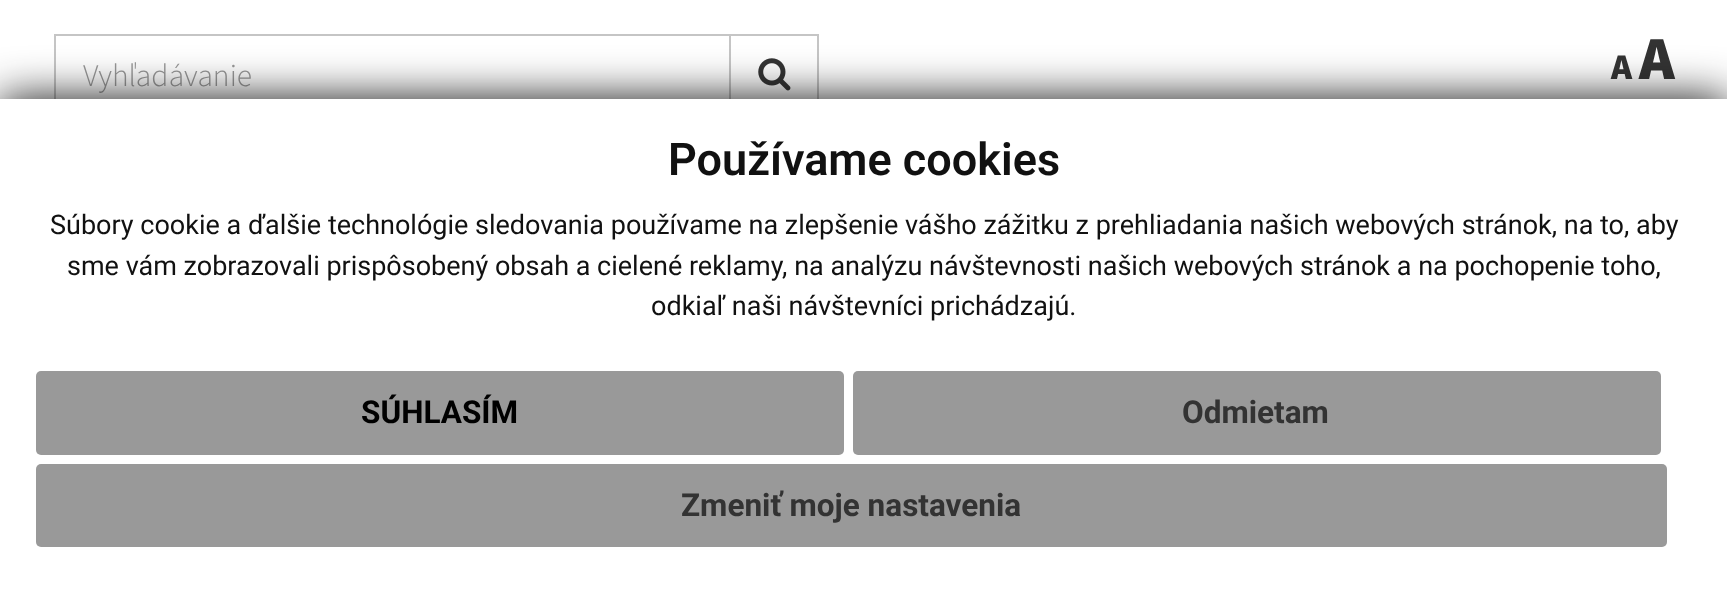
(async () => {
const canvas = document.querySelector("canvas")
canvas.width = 1727
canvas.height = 599
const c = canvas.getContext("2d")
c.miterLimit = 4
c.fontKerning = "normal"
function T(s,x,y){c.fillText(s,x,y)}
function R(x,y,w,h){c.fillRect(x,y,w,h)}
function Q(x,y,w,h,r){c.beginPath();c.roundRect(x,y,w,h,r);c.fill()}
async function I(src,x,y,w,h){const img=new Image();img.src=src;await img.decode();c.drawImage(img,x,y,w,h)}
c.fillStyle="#fff"
R(0,0,1727,599)
c.strokeStyle="#c5c5c5"
c.lineWidth=2
c.strokeRect(55,35,675,79)
c.font="300 31.5px Source Sans Pro"
c.fillStyle="#999"
T("Vyhľadávanie",83,86)
c.strokeRect(730,35,88,79)
await I("1.png",758,58,33,33)
c.font="900 36px Source Sans Pro"
c.fillStyle="#333"
T("A",1611,79)
c.font="900 61px Source Sans Pro"
T("A",1639,79)
c.fillStyle="#111"
c.filter="blur(22.5px)"
c.beginPath()
c.rect(0,99,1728,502)
c.fill()
c.filter="none"
c.fillStyle="#fff"
R(0,99,1727,500)
c.font="600 45px Roboto"
c.fillStyle="#111"
T("Používame cookies",668,175)
c.font="27px Roboto"
T("Súbory cookie a ďalšie technológie sledovania používame na zlepšenie vášho zážitku z prehliadania našich webových stránok, na to, aby",50,234)
T("sme vám zobrazovali prispôsobený obsah a cielené reklamy, na analýzu návštevnosti našich webových stránok a na pochopenie toho,",67,275)
T("odkiaľ naši návštevníci prichádzajú.",651,315)
c.fillStyle="#999"
Q(36,371,808,84,5)
c.font="bold 31.5px Roboto"
c.fillStyle="#000"
T("SÚHLASÍM",361,423)
c.fillStyle="#999"
Q(853,371,808,84,5)
c.fillStyle="#333"
T("Odmietam",1182,423)
c.fillStyle="#999"
Q(36,464,1631,83,5)
c.fillStyle="#333"
T("Zmeniť moje nastavenia",681,516)
})()
